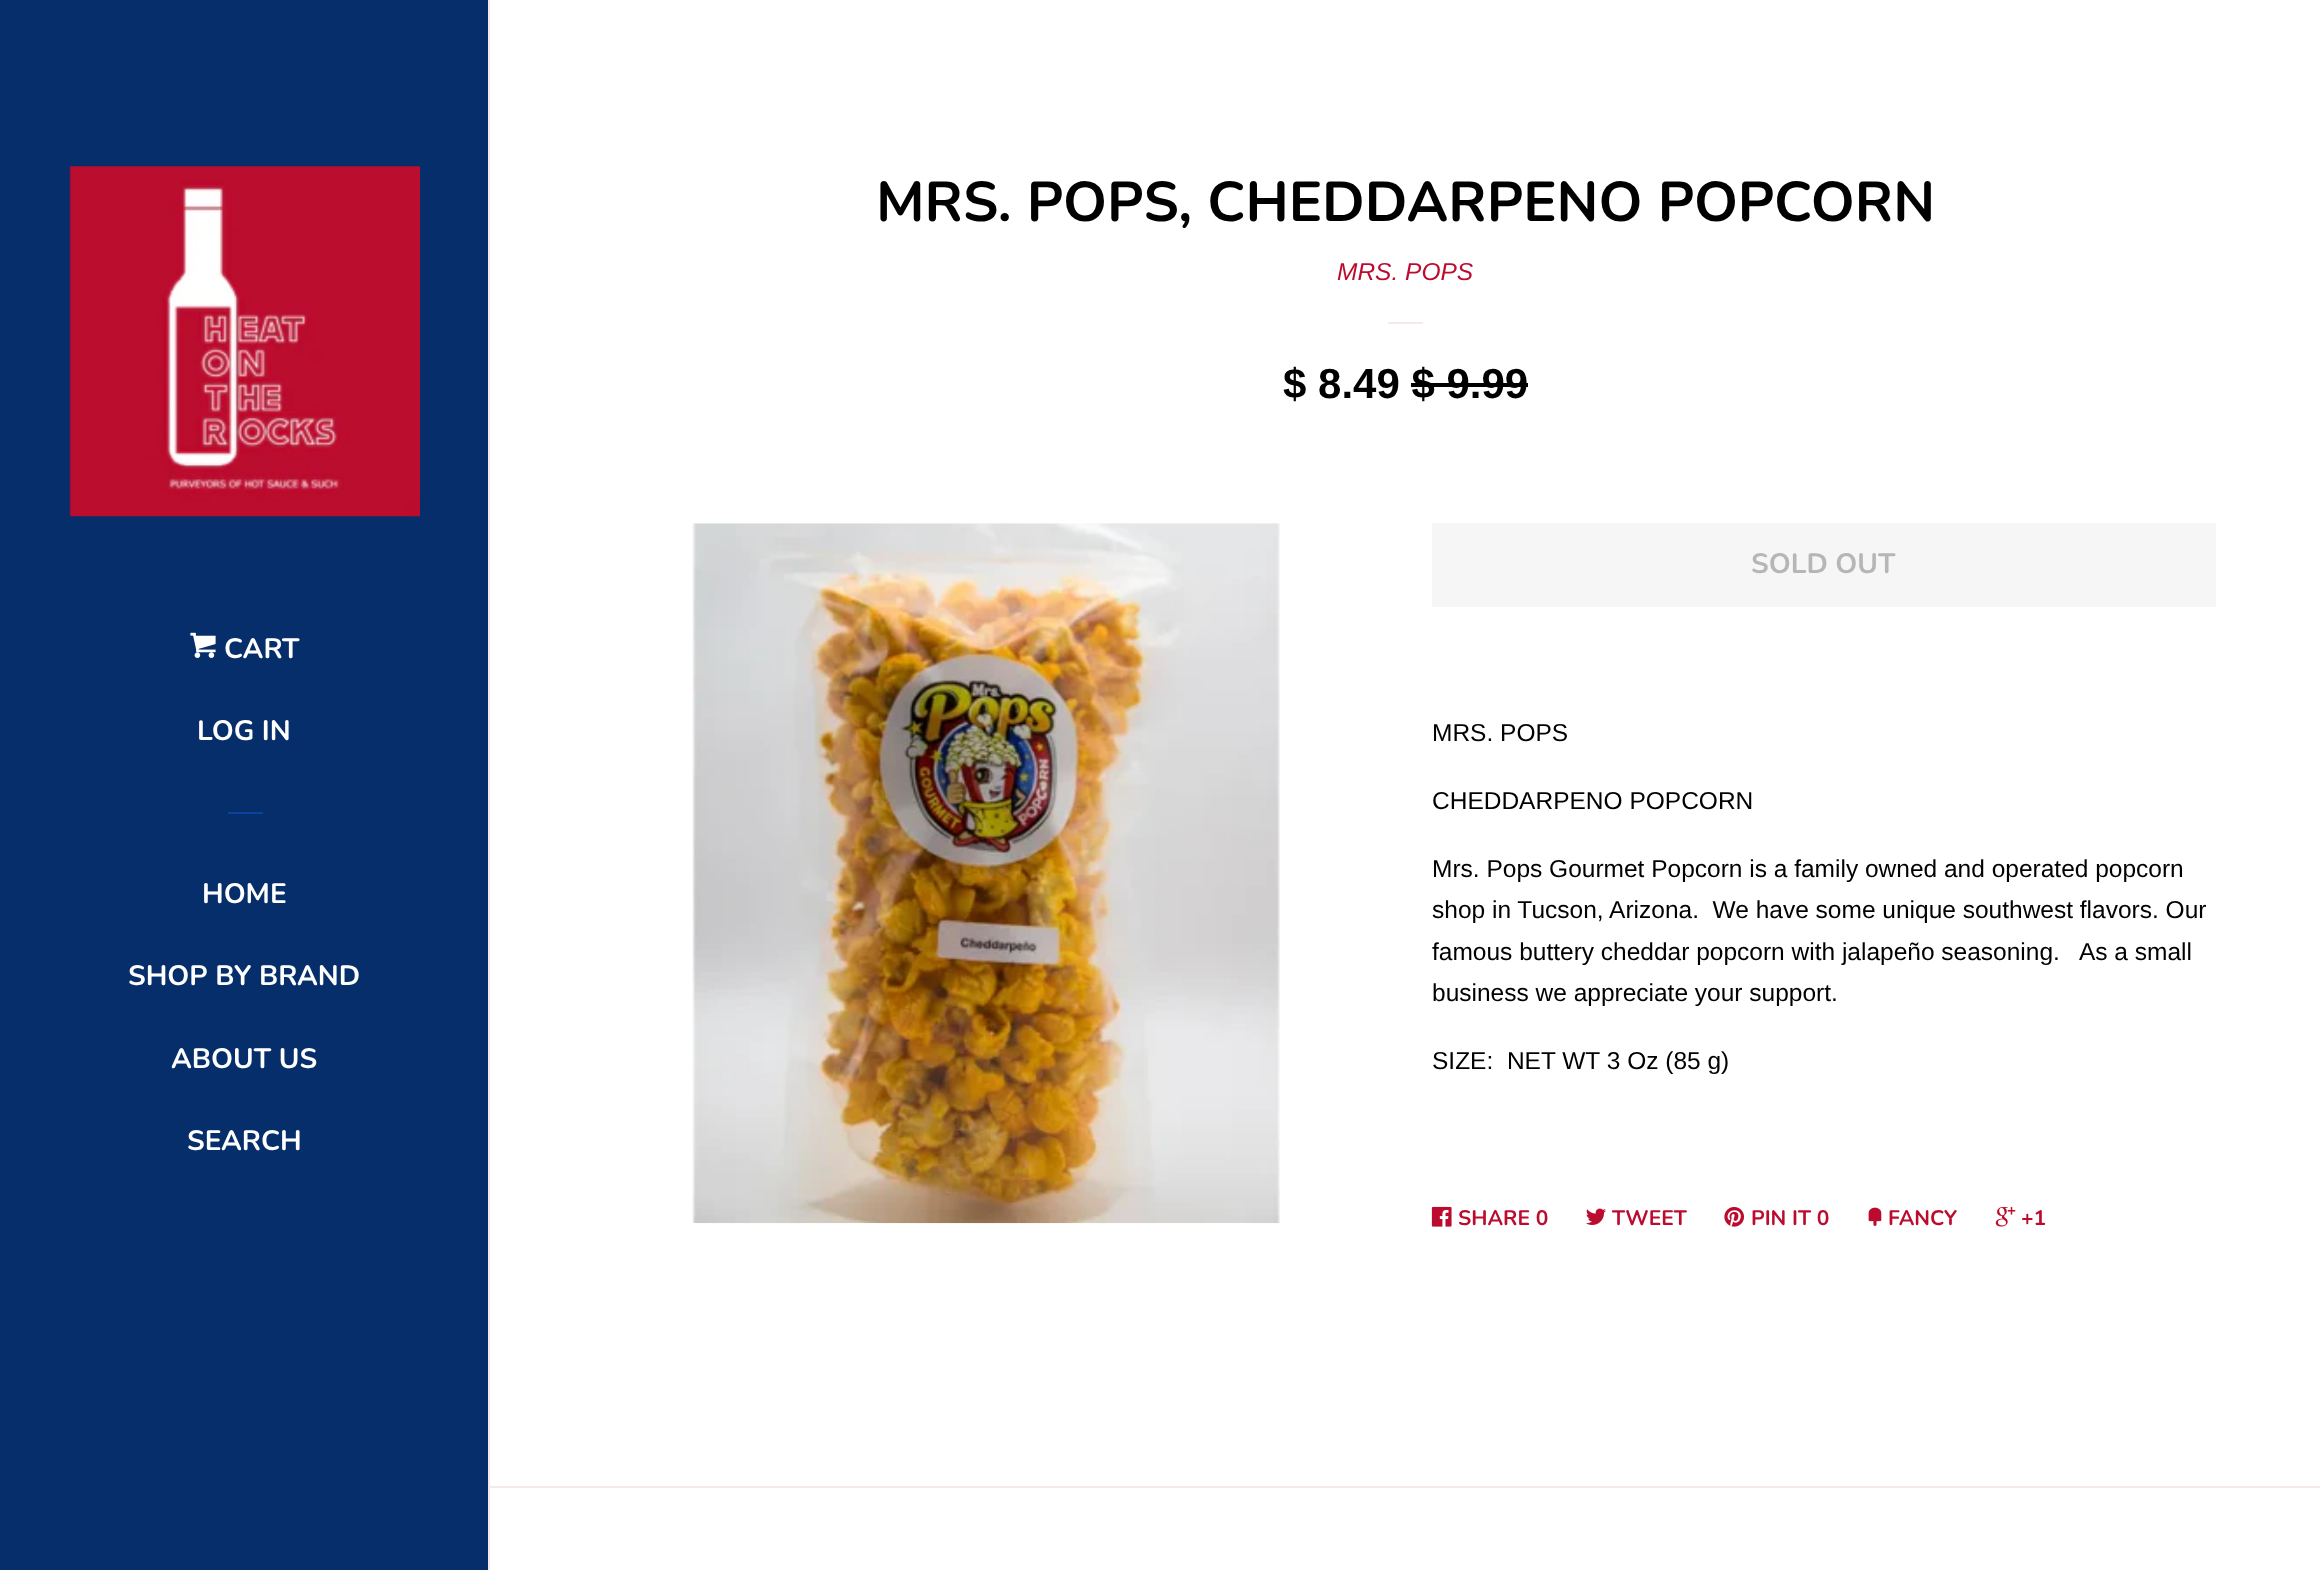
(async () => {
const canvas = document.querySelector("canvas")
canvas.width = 2320
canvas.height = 1570
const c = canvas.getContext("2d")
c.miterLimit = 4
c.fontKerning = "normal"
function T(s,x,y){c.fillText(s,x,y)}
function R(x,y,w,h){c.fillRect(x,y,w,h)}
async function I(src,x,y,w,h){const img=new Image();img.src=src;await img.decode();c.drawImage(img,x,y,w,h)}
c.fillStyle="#fff"
R(0,0,2320,1570)
c.fillStyle="#062e6b"
R(0,0,488,1570)
c.fillStyle="#f5eae7"
R(488,0,2,1570)
await I("1.png",69,166,351,351)
await I("2.png",190,632,26,26)
c.font="200 28px Nunito"
c.fillStyle="#fff"
T("CART",224,658)
T("LOG IN",197,740)
c.fillStyle="#09439b"
R(228,812,35,2)
c.fillStyle="#fff"
T("HOME",202,903)
T("SHOP BY BRAND",128,985)
T("ABOUT US",171,1068)
T("SEARCH",187,1150)
c.font="200 56px Nunito"
c.fillStyle="#000"
T("MRS. POPS, CHEDDARPENO POPCORN",876,221)
c.font="italic 24.5px Liberation Sans"
c.fillStyle="#bb0c2f"
T("MRS. POPS",1337,280)
c.fillStyle="#f5eae7"
R(1388,322,35,2)
c.font="bold 42px Liberation Sans"
c.fillStyle="#000"
T("$ 8.49 $ 9.99",1283,398)
R(1411,383,117,4)
await I("3.png",692,523,588,701)
c.fillStyle="#f6f6f6"
R(1432,523,784,84)
c.font="200 28px Nunito"
c.fillStyle="#b6b6b6"
T("SOLD OUT",1751,573)
c.font="24.5px Liberation Sans"
c.fillStyle="#000"
T("MRS. POPS",1432,741)
T("CHEDDARPENO POPCORN",1432,809)
T("Mrs. Pops Gourmet Popcorn is a family owned and operated popcorn",1432,877)
T("shop in Tucson, Arizona.  We have some unique southwest flavors. Our",1432,918)
T("famous buttery cheddar popcorn with jalapeño seasoning.   As a small",1432,960)
T("business we appreciate your support.",1432,1001)
T("SIZE:  NET WT 3 Oz (85 g)",1432,1069)
await I("4.png",1431,1206,21,21)
c.font="200 21px Nunito"
c.fillStyle="#bb0c2f"
T("SHARE 0",1458,1225)
await I("5.png",1586,1208,20,17)
T("TWEET",1612,1225)
await I("6.png",1724,1207,20,20)
T("PIN IT 0",1751,1225)
await I("7.png",1868,1207,14,19)
T("FANCY",1888,1225)
await I("8.png",1995,1207,21,20)
T("+1",2021,1225)
c.fillStyle="#f5eae7"
R(490,1486,1830,2)
})()
